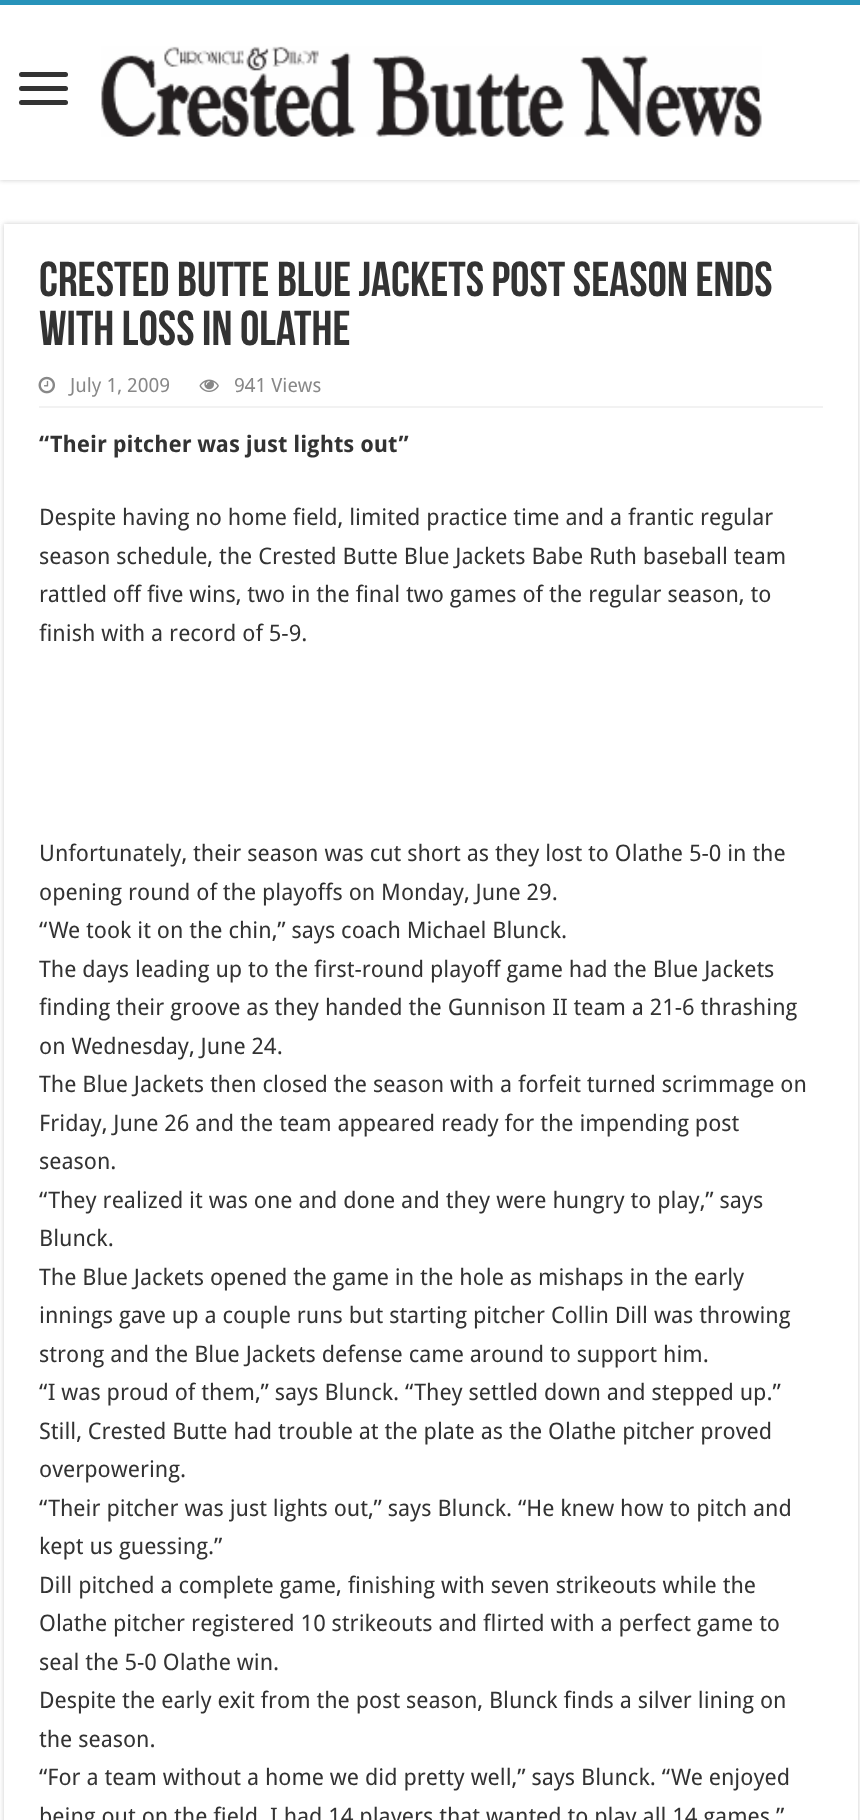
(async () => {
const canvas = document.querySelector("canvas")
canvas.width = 860
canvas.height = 1820
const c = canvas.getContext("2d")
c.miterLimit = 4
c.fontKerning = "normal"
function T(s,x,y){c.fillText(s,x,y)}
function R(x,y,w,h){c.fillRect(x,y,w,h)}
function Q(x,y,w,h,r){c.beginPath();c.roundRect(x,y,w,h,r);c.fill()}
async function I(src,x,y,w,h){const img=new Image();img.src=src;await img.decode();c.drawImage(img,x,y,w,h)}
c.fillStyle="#fff"
R(0,0,860,1820)
c.save()
c.beginPath()
c.rect(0,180,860,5)
c.clip()
c.fillStyle="#cacaca"
c.filter="blur(2.5px)"
c.beginPath()
c.rect(0,0,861,180)
c.fill()
c.filter="none"
c.restore()
c.fillStyle="#2793ba"
R(0,0,860,5)
c.fillStyle="#333"
Q(19,72,49,5,2.5)
Q(19,86,49,5,2.5)
Q(19,100,49,5,2.5)
await I("1.png",101,46,661,91)
c.fillStyle="#cacaca"
c.filter="blur(2.5px)"
c.beginPath()
c.rect(4,224,854,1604)
c.fill()
c.filter="none"
c.fillStyle="#fff"
R(4,224,854,1596)
c.font="bold 49px Bebas Neue"
c.fillStyle="#333"
T("Crested Butte Blue Jackets post season ends",39,296)
T("with loss in Olathe",39,345)
c.fillStyle="#f2f2f2"
R(39,406,784,2)
await I("2.png",38,376,17,18)
c.font="19.5px Droid Sans"
c.fillStyle="#888"
T("July 1, 2009",70,392)
await I("3.png",199,379,20,13)
T("941 Views",234,392)
c.font="bold 22.75px Droid Sans"
c.fillStyle="#333"
T("“Their pitcher was just lights out”",39,452)
c.font="22.75px Droid Sans"
T("Despite having no home field, limited practice time and a frantic regular",39,525)
T("season schedule, the Crested Butte Blue Jackets Babe Ruth baseball team",39,564)
T("rattled off five wins, two in the final two games of the regular season, to",39,602)
T("finish with a record of 5-9.",39,641)
T("Unfortunately, their season was cut short as they lost to Olathe 5-0 in the",39,861)
T("opening round of the playoffs on Monday, June 29.",39,900)
T("“We took it on the chin,” says coach Michael Blunck.",39,938)
T("The days leading up to the first-round playoff game had the Blue Jackets",39,977)
T("finding their groove as they handed the Gunnison II team a 21-6 thrashing",39,1015)
T("on Wednesday, June 24.",39,1054)
T("The Blue Jackets then closed the season with a forfeit turned scrimmage on",39,1092)
T("Friday, June 26 and the team appeared ready for the impending post",39,1131)
T("season.",39,1169)
T("“They realized it was one and done and they were hungry to play,” says",39,1208)
T("Blunck.",39,1246)
T("The Blue Jackets opened the game in the hole as mishaps in the early",39,1285)
T("innings gave up a couple runs but starting pitcher Collin Dill was throwing",39,1323)
T("strong and the Blue Jackets defense came around to support him.",39,1362)
T("“I was proud of them,” says Blunck. “They settled down and stepped up.”",39,1400)
T("Still, Crested Butte had trouble at the plate as the Olathe pitcher proved",39,1439)
T("overpowering.",39,1477)
T("“Their pitcher was just lights out,” says Blunck. “He knew how to pitch and",39,1516)
T("kept us guessing.”",39,1554)
T("Dill pitched a complete game, finishing with seven strikeouts while the",39,1593)
T("Olathe pitcher registered 10 strikeouts and flirted with a perfect game to",39,1631)
T("seal the 5-0 Olathe win.",39,1670)
T("Despite the early exit from the post season, Blunck finds a silver lining on",39,1708)
T("the season.",39,1747)
T("“For a team without a home we did pretty well,” says Blunck. “We enjoyed",39,1785)
T("being out on the field. I had 14 players that wanted to play all 14 games.”",39,1824)
})()
